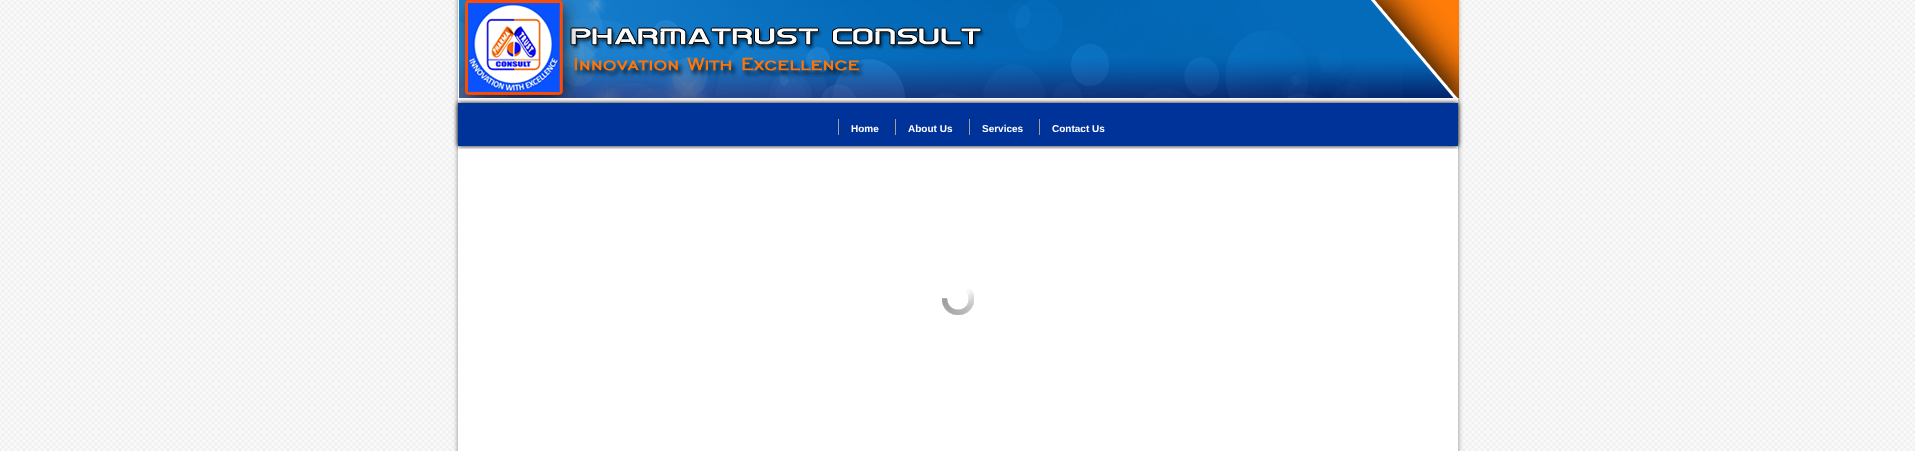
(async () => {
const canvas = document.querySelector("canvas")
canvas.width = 1915
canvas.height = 451
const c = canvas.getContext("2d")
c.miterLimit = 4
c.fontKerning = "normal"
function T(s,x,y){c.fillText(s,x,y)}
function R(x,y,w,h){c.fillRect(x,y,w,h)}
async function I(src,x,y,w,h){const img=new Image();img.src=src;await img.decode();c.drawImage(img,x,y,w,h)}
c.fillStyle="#fff"
R(0,0,1915,451)
await I("1.png",0,0,1915,451)
c.fillStyle="#888"
c.filter="blur(2.5px)"
c.beginPath()
c.rect(458,-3,1000,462)
c.fill()
c.filter="none"
c.fillStyle="#fff"
R(458,0,1000,451)
c.fillStyle="#000"
c.filter="blur(2.5px)"
c.beginPath()
c.rect(458,103,1000,43)
c.fill()
c.filter="none"
await I("2.png",459,0,1000,98)
c.fillStyle="#039"
R(458,103,1000,43)
c.font="bold 10px Liberation Sans"
c.fillStyle="#fff"
T("Home",851,132)
c.fillStyle="#9f9f9f"
R(838,119,1,16)
c.fillStyle="#fff"
T("About Us",908,132)
c.fillStyle="#9f9f9f"
R(895,119,1,16)
c.fillStyle="#fff"
T("Services",982,132)
c.fillStyle="#9f9f9f"
R(969,119,1,16)
c.fillStyle="#fff"
T("Contact Us",1052,132)
c.fillStyle="#9f9f9f"
R(1039,119,1,16)
c.fillStyle="#fff"
R(458,149,1000,3)
await I("3.png",942,287,32,28)
})()
